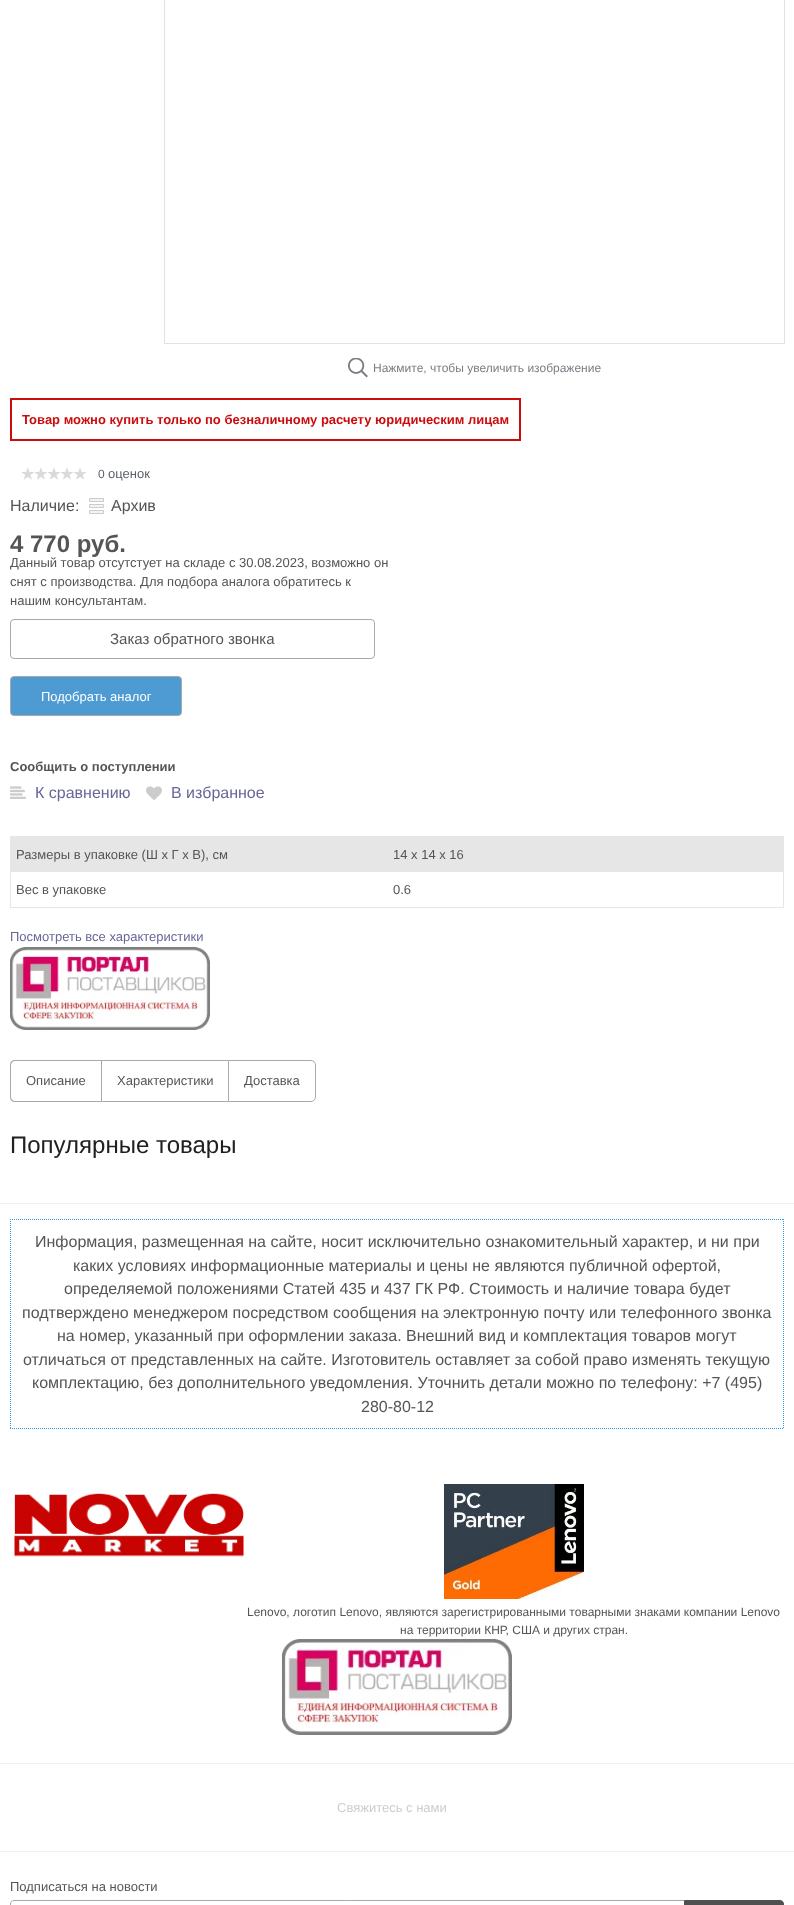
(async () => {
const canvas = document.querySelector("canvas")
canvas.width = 794
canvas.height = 1905
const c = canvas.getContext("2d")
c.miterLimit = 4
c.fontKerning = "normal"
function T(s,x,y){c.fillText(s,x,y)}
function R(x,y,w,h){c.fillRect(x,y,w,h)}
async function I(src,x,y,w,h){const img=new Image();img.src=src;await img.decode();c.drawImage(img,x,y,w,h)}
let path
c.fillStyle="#fff"
R(0,0,794,1905)
c.strokeStyle="#e2e2e2"
c.strokeRect(164.5,-.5,620,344)
await I("1.png",348,358,20,20)
c.font="12px Liberation Sans"
c.fillStyle="#7b7d84"
T("Нажмите, чтобы увеличить изображение",373,372)
c.strokeStyle="#cb0c0c"
c.lineWidth=2
c.strokeRect(11,399,509,41)
c.font="bold 13px Liberation Sans"
c.fillStyle="#cb0c0c"
T("Товар можно купить только по безналичному расчету юридическим лицам",22,424)
c.fillStyle="#dadada"
R(21,467,66,13)
await I("2.png",20,466,68,16)
c.font="12px Liberation Sans"
c.fillStyle="#585f69"
T("0",98,478)
c.font="13px Liberation Sans"
T("оценок",108,478)
c.font="16px Liberation Sans"
c.fillStyle="#555"
T("Наличие:",10,511)
c.fillStyle="#f2f2f2"
c.beginPath()
c.rect(89.5,504.5,14,3)
c.fill()
c.strokeStyle="#ccc"
c.lineWidth=1
c.stroke()
c.beginPath()
c.rect(89.5,498.5,14,3)
c.fill()
c.stroke()
c.beginPath()
c.rect(89.5,510.5,14,3)
c.fill()
c.stroke()
c.fillStyle="#555"
T("Архив",111,511)
c.font="bold 24px Liberation Sans"
T("4 770 руб.",10,552)
c.font="13px Liberation Sans"
T("Данный товар отсутстует на складе с 30.08.2023, возможно он",10,567)
T("снят с производства. Для подбора аналога обратитесь к",10,586)
T("нашим консультантам.",10,605)
c.beginPath()
c.roundRect(10.5,619.5,364,39,3.5)
c.strokeStyle="#a9a9a9"
c.stroke()
c.font="15px Liberation Sans"
T("Заказ обратного звонка",110,644)
c.fillStyle="#4e9ad2"
c.beginPath()
c.roundRect(10.5,676.5,171,39,3.5)
c.fill()
c.stroke()
c.font="13px Liberation Sans"
c.fillStyle="#fff"
T("Подобрать аналог",41,701)
c.font="bold 13px Liberation Sans"
c.fillStyle="#555"
T("Сообщить о поступлении",10,771)
await I("3.png",10,786,16,13)
c.font="16px Liberation Sans"
c.fillStyle="#669"
T("К сравнению",35,798)
await I("4.png",146,786,16,14)
T("В избранное",171,798)
c.strokeStyle="#e6e6e6"
c.strokeRect(10.5,836.5,773,71)
c.fillStyle="#e6e6e6"
R(11,837,772,35)
c.font="13px Liberation Sans"
c.fillStyle="#555"
T("Размеры в упаковке (Ш x Г x В), см",16,859)
T("14 x 14 x 16",393,859)
T("Вес в упаковке",16,894)
T("0.6",393,894)
c.fillStyle="#669"
T("Посмотреть все характеристики",10,941)
await I("5.png",10,947,200,83)
c.fillStyle="#a9a9a9"
path = new Path2D("M15 1060h86v42h-86c-3 0-5-2-5-5v-32c0-3 2-5 5-5zm0 1h86v40h-86c-2 0-4-2-4-4v-32c0-2 2-4 4-4z")
c.fill(path,"evenodd")
c.fillStyle="#555"
T("Описание",26,1085)
c.fillStyle="#a9a9a9"
R(101,1060,127,1)
R(101,1101,127,1)
R(101,1060,1,42)
c.fillStyle="#555"
T("Характеристики",117,1085)
c.beginPath()
c.roundRect(228.5,1060.5,87,41,[0,4.5,4.5,0])
c.strokeStyle="#a9a9a9"
c.stroke()
T("Доставка",244,1085)
c.font="24px Liberation Sans"
c.fillStyle="#202020"
T("Популярные товары",10,1153)
c.fillStyle="#f0f0f0"
R(0,1203,794,1)
path = new Path2D("M10 1219.5h774")
c.strokeStyle="#3498db"
c.setLineDash([1,1])
c.stroke(path)
path = new Path2D("M783.5 1219v210")
c.stroke(path)
path = new Path2D("M10 1428.5h774")
c.stroke(path)
path = new Path2D("M10.5 1219v210")
c.stroke(path)
c.font="16px Liberation Sans"
c.fillStyle="#555"
T("Информация, размещенная на сайте, носит исключительно ознакомительный характер, и ни при",35,1247)
T("каких условиях информационные материалы и цены не являются публичной офертой,",73,1271)
T("определяемой положениями Статей 435 и 437 ГК РФ. Стоимость и наличие товара будет",64,1294)
T("подтверждено менеджером посредством сообщения на электронную почту или телефонного звонка",22,1318)
T("на номер, указанный при оформлении заказа. Внешний вид и комплектация товаров могут",57,1341)
T("отличаться от представленных на сайте. Изготовитель оставляет за собой право изменять текущую",23,1365)
T("комплектацию, без дополнительного уведомления. Уточнить детали можно по телефону: +7 (495)",32,1388)
T("280-80-12",361,1412)
c.fillStyle="#f0f0f0"
R(0,1763,794,1)
await I("6.png",14,1493,230,64)
await I("7.png",444,1484,140,115)
c.font="12px Liberation Sans"
c.fillStyle="#555"
T("Lenovo, логотип Lenovo, являются зарегистрированными товарными знаками компании Lenovo",247,1616)
T("на территории КНР, США и других стран.",400,1634)
await I("8.png",282,1639,230,96)
c.fillStyle="#f0f0f0"
R(0,1851,794,1)
c.font="13px Liberation Sans"
c.fillStyle="#ccc"
T("Свяжитесь с нами",337,1812)
c.fillStyle="#555"
T("Подписаться на новости",10,1891)
path = new Path2D("M14 1900.5h670.5v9h-670.5c-2 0-3.5-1.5-3.5-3.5v-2c0-2 1.5-3.5 3.5-3.5z")
c.strokeStyle="#a9a9a9"
c.setLineDash([])
c.stroke(path)
c.fillStyle="#505050"
path = new Path2D("M684.5 1900.5h95.5c2 0 3.5 1.5 3.5 3.5v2c0 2-1.5 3.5-3.5 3.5h-95.5z")
c.fill(path)
c.strokeStyle="#505050"
c.stroke(path)
})()
